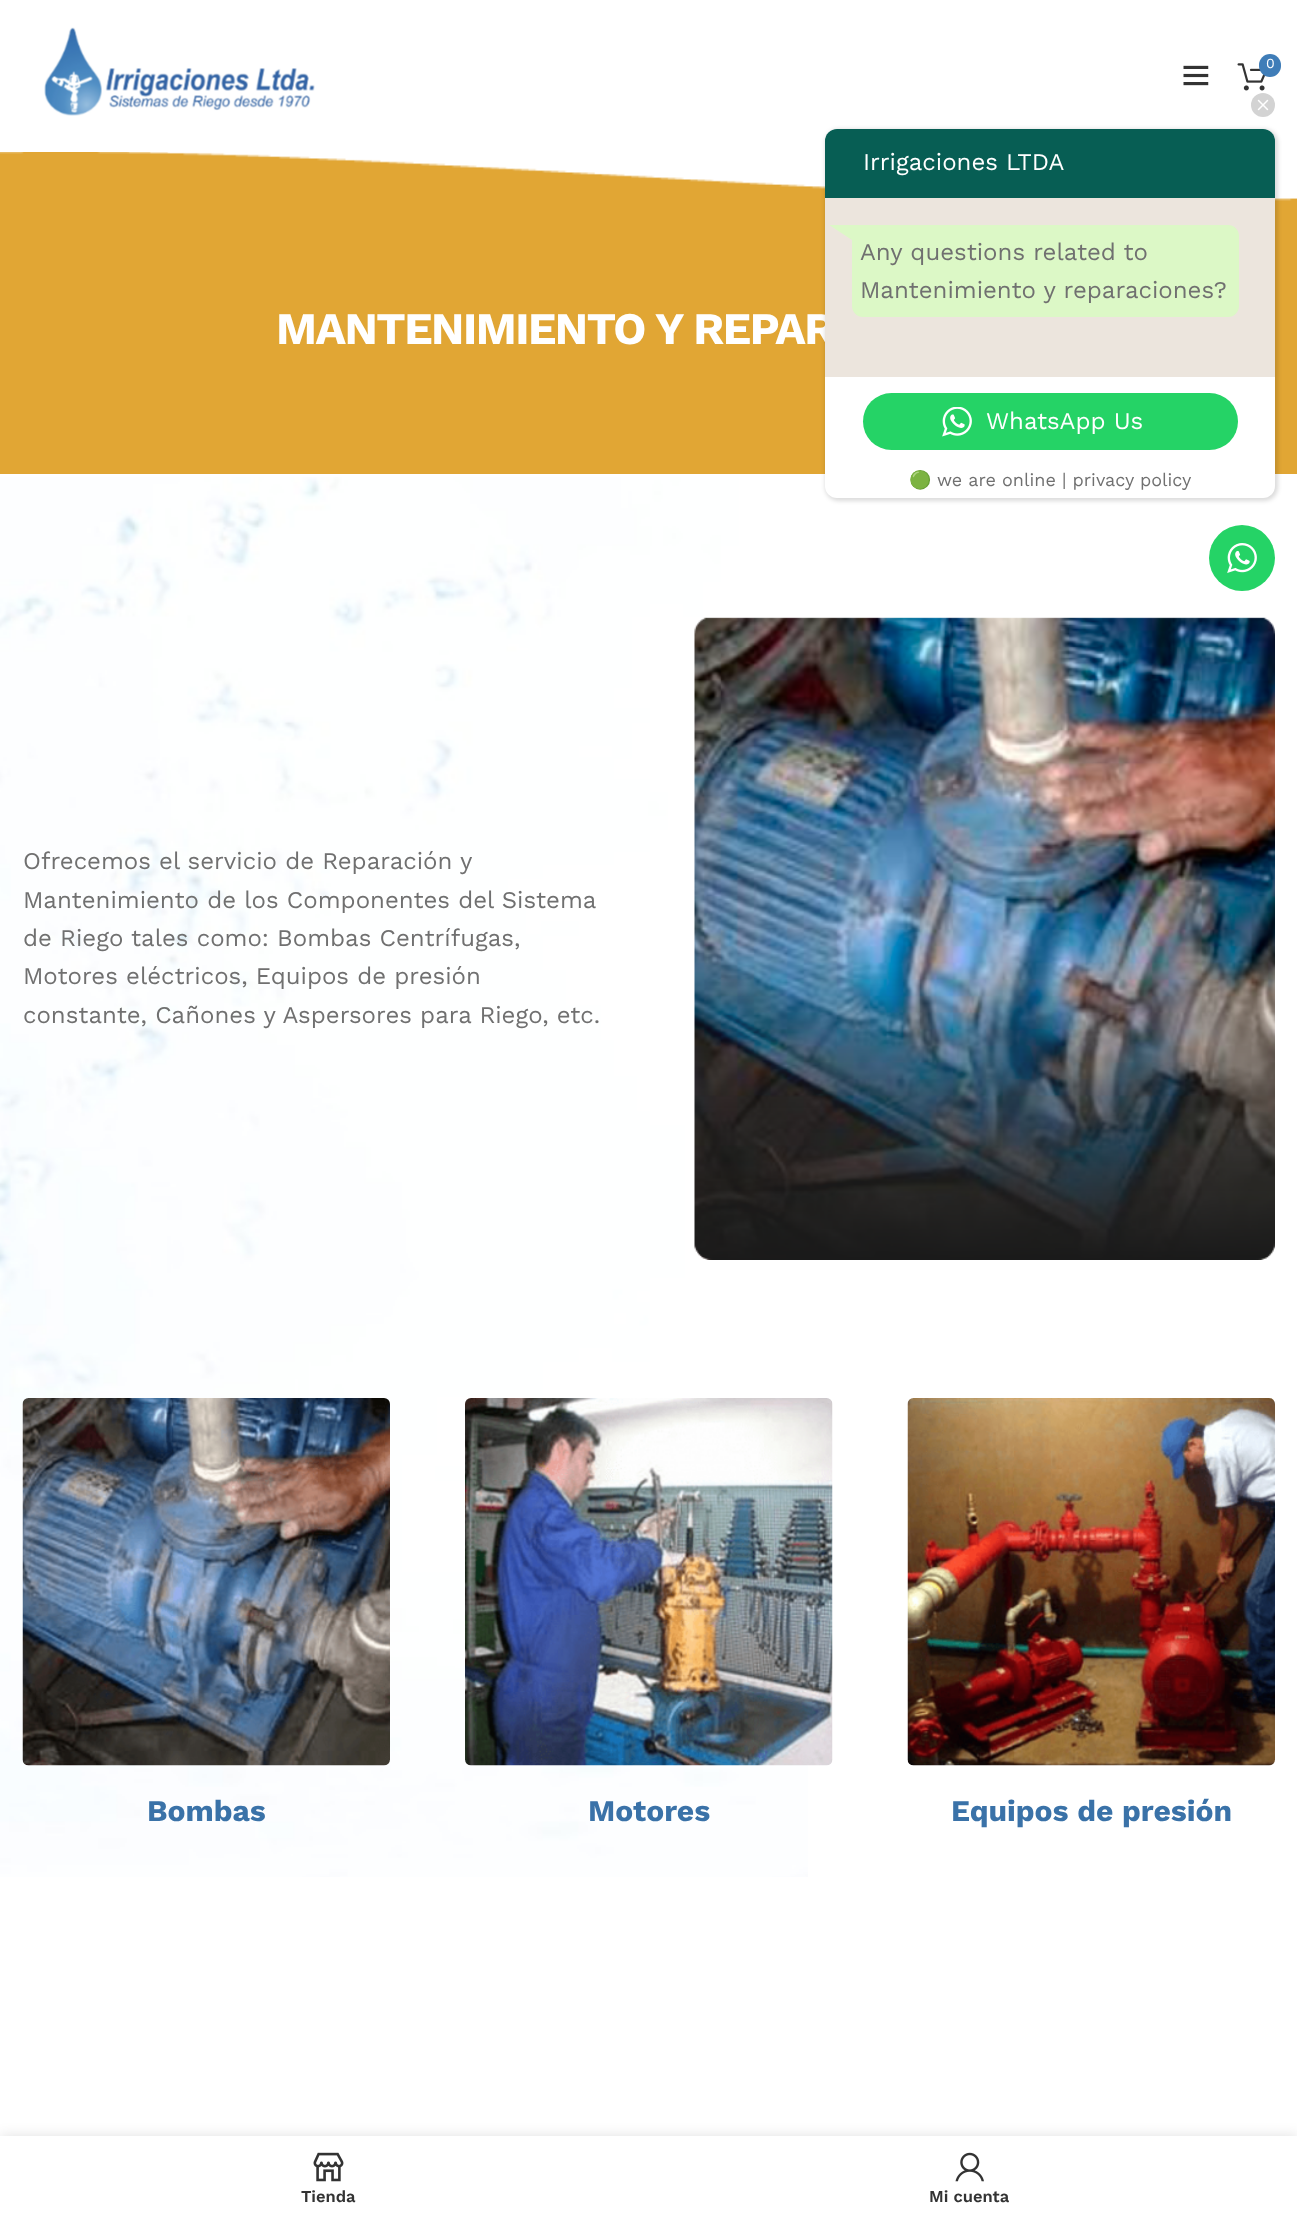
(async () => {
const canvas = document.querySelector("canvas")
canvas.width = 1297
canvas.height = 2218
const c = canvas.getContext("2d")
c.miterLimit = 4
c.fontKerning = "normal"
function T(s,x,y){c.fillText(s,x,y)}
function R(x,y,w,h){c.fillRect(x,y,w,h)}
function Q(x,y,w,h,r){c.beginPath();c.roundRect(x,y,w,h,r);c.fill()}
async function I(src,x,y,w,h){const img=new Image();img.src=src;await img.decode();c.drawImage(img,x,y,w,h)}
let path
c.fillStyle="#fff"
R(0,0,1297,2218)
await I("1.png",44,27,271,89)
await I("2.png",1237,63,29,28)
c.fillStyle="#3f7db8"
Q(1259,54,22,23,11)
c.font="14px Work Sans"
c.fillStyle="#fff"
T("0",1266,68)
await I("3.png",1183,65,26,21)
await I("4.png",0,152,1297,322)
c.letterSpacing="-1.5px"
c.font="bold 45px Work Sans"
T("MANTENIMIENTO Y REPAR",276,344)
await I("5.png",0,477,808,1400)
c.letterSpacing="0px"
c.font="24px Work Sans"
c.fillStyle="#707070"
T("Ofrecemos el servicio de Reparación y",23,869)
T("Mantenimiento de los Componentes del Sistema",23,908)
T("de Riego tales como: Bombas Centrífugas,",23,946)
T("Motores eléctricos, Equipos de presión",23,984)
T("constante, Cañones y Aspersores para Riego, etc.",23,1023)
await I("6.png",694,617,581,643)
await I("7.png",22,1398,368,368)
c.font="bold 30px Work Sans"
c.fillStyle="#3a72a8"
T("Bombas",147,1821)
await I("8.png",465,1398,368,368)
T("Motores",588,1821)
await I("9.png",907,1398,368,368)
T("Equipos de presión",951,1821)
c.fillStyle="#d3d3d3"
c.beginPath()
c.arc(1263,105,12,0,7)
c.fill()
await I("10.png",1257,99,12,12)
c.fillStyle="#00000024"
c.filter="blur(2px)"
c.beginPath()
c.roundRect(825,129,453,372,14)
c.fill()
c.filter="none"
c.fillStyle="#fff"
Q(825,129,450,369,12)
c.fillStyle="#075e54"
c.beginPath()
c.roundRect(825,129,450,69,[12,12,0,0])
c.fill()
c.font="24px Work Sans"
c.fillStyle="#fff"
T("Irrigaciones LTDA",863,170)
c.fillStyle="#ece5dd"
R(825,198,450,179)
c.fillStyle="#dcf8c6"
c.beginPath()
c.roundRect(852,225,387,92,[0,11,11,11])
c.fill()
path = new Path2D("M852 225h-22v.5l22 14.5z")
c.fill(path)
c.fillStyle="#707070"
T("Any questions related to",860,260)
T("Mantenimiento y reparaciones?",860,298)
c.fillStyle="#25d366"
Q(863,393,375,57,28.5)
await I("11.png",942,407,30,30)
c.fillStyle="#fff"
T("WhatsApp Us",986,429)
c.font="18px Noto Color Emoji"
c.fillStyle="#707070"
T("🟢",909,486)
c.font="18px Work Sans"
T("we are online | privacy policy",937,486)
c.fillStyle="#25d366"
c.beginPath()
c.arc(1242,558,33,0,7)
c.fill()
await I("12.png",1227,543,30,30)
c.fillStyle="#0000001f"
c.filter="blur(7px)"
c.beginPath()
c.rect(0,2136,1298,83)
c.fill()
c.filter="none"
c.fillStyle="#fff"
R(0,2136,1297,82)
await I("13.png",313,2152,31,30)
c.font="600 16.5px Work Sans"
c.fillStyle="#333"
T("Tienda",301,2202)
await I("14.png",955,2152,29,30)
T("Mi cuenta",929,2202)
})()
